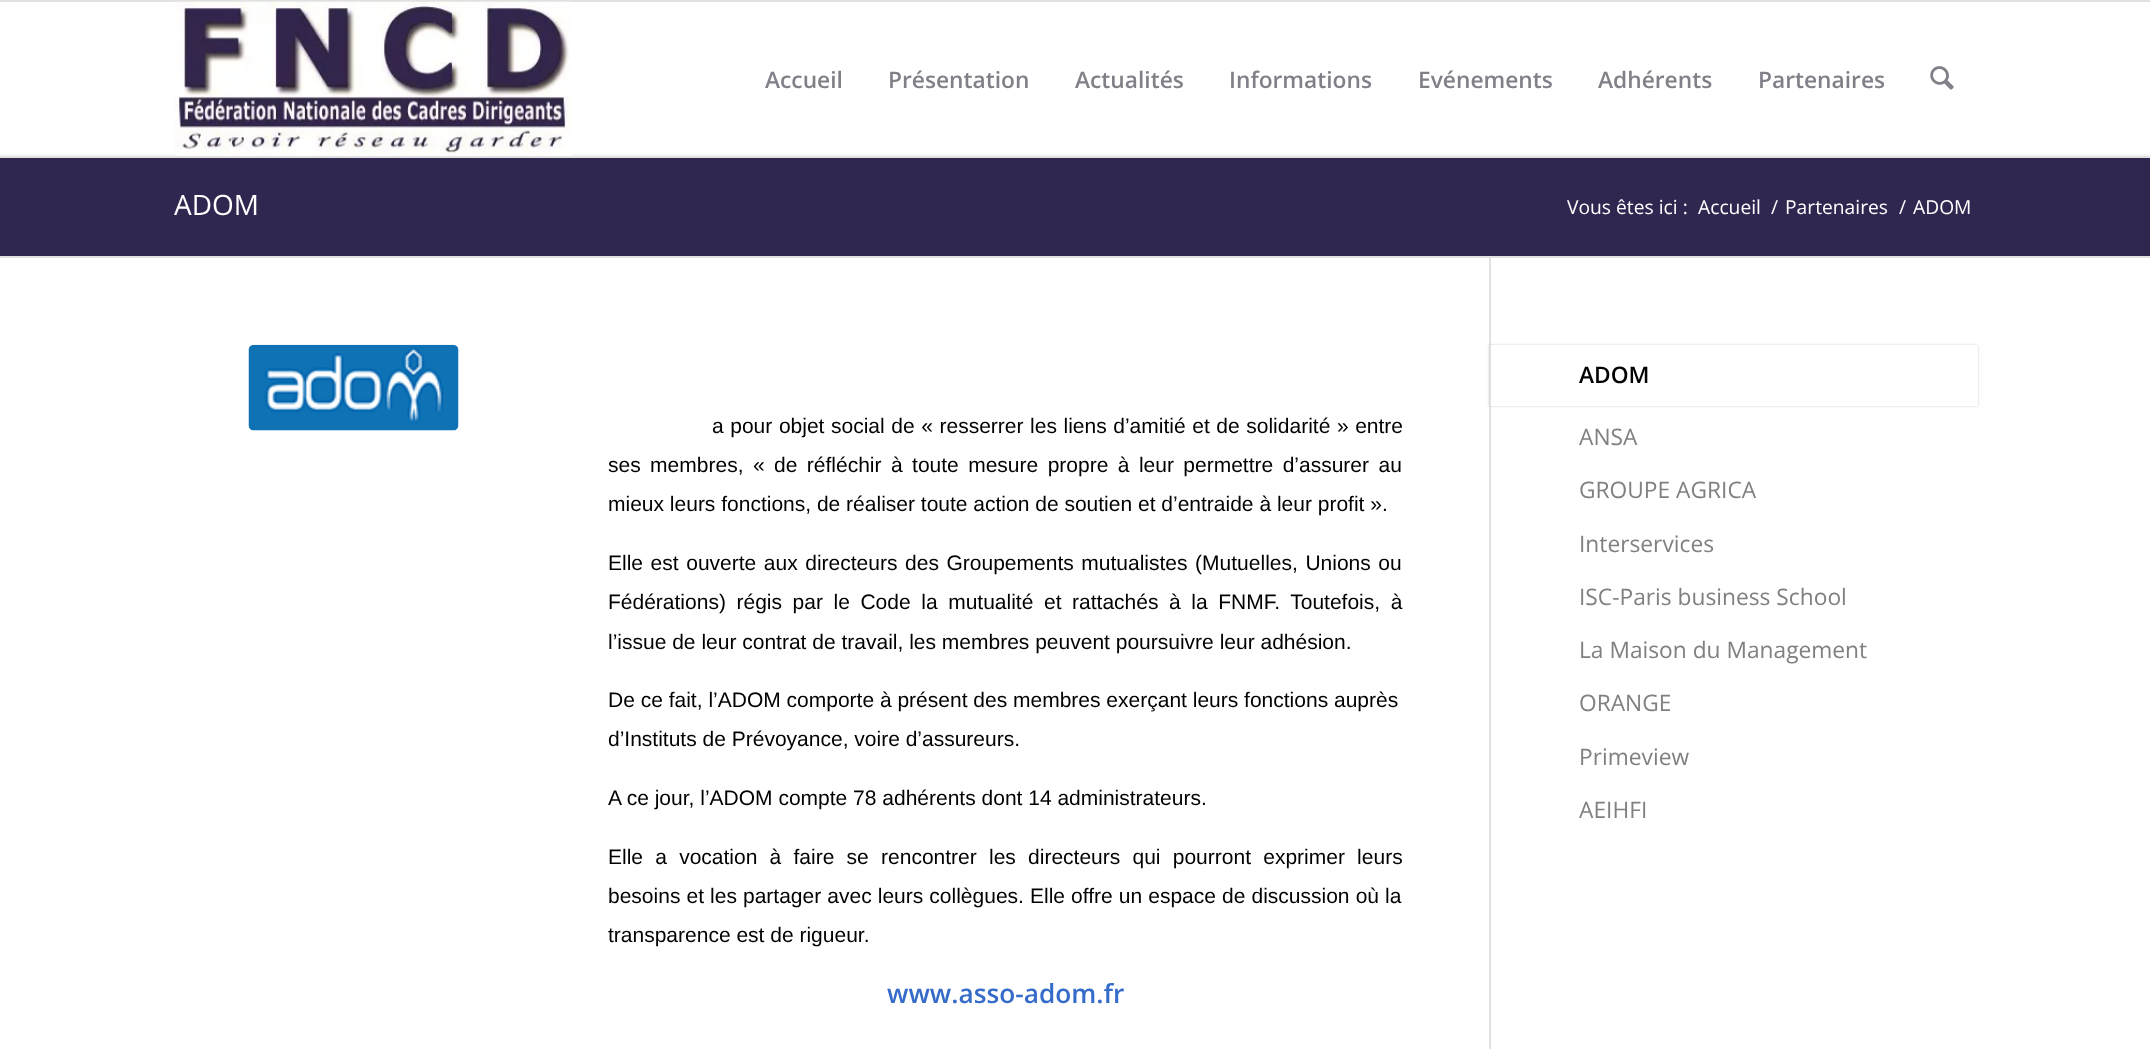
(async () => {
const canvas = document.querySelector("canvas")
canvas.width = 2150
canvas.height = 1049
const c = canvas.getContext("2d")
c.miterLimit = 4
c.fontKerning = "normal"
function T(s,x,y){c.fillText(s,x,y)}
function R(x,y,w,h){c.fillRect(x,y,w,h)}
async function I(src,x,y,w,h){const img=new Image();img.src=src;await img.decode();c.drawImage(img,x,y,w,h)}
let path
c.fillStyle="#fff"
R(0,0,2150,1049)
c.fillStyle="#e1e1e1"
R(0,0,2150,2)
R(0,156,2150,2)
c.fillStyle="#f5f6f6"
R(0,154,2150,2)
await I("1.png",175,1,397,155)
c.font="600 22.75px Open Sans"
c.fillStyle="#808188"
T("Accueil",765,88)
T("Présentation",888,88)
T("Actualités",1075,88)
T("Informations",1229,88)
T("Evénements",1418,88)
T("Adhérents",1598,88)
T("Partenaires",1758,88)
await I("2.png",1930,66,24,24)
c.fillStyle="#312650"
R(0,158,2150,98)
c.font="28px Open Sans"
c.fillStyle="#fff"
T("ADOM",174,215)
c.font="19.25px Open Sans"
T("Vous êtes ici :",1567,214)
T("Accueil",1698,214)
T("/",1771,214)
T("Partenaires",1785,214)
T("/",1899,214)
T("ADOM",1913,214)
c.fillStyle="#e1e1e1"
R(0,256,2150,2)
R(1489,257,2,792)
await I("3.png",248,344,211,87)
c.wordSpacing="0.75px"
c.font="21px Liberation Sans"
c.fillStyle="#000"
T("a pour objet social de « resserrer les liens d’amitié et de solidarité » entre",712,433)
c.wordSpacing="3.6px"
T("ses membres, « de réfléchir à toute mesure propre à leur permettre d’assurer au",608,472)
c.wordSpacing="0px"
T("mieux leurs fonctions, de réaliser toute action de soutien et d’entraide à leur profit ».",608,511)
c.wordSpacing="1.75px"
T("Elle est ouverte aux directeurs des Groupements mutualistes (Mutuelles, Unions ou",608,570)
c.wordSpacing="4.75px"
T("Fédérations) régis par le Code la mutualité et rattachés à la FNMF. Toutefois, à",608,609)
c.wordSpacing="0px"
T("l’issue de leur contrat de travail, les membres peuvent poursuivre leur adhésion.",608,649)
T("De ce fait, l’ADOM comporte à présent des membres exerçant leurs fonctions auprès",608,707)
T("d’Instituts de Prévoyance, voire d’assureurs.",608,746)
T("A ce jour, l’ADOM compte 78 adhérents dont 14 administrateurs.",608,805)
c.wordSpacing="6.4px"
T("Elle a vocation à faire se rencontrer les directeurs qui pourront exprimer leurs",608,864)
c.wordSpacing="0.25px"
T("besoins et les partager avec leurs collègues. Elle offre un espace de discussion où la",608,903)
c.wordSpacing="0px"
T("transparence est de rigueur.",608,942)
c.font="600 26.25px Open Sans"
c.fillStyle="#356bc9"
T("www.asso-adom.fr",887,1003)
c.save()
path = new Path2D("M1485 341h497v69h-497zm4 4h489v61h-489z")
c.clip(path,"evenodd")
c.fillStyle="#00000033"
c.filter="blur(1px)"
c.beginPath()
c.rect(1489,345,489,61)
c.fill()
c.filter="none"
c.restore()
c.fillStyle="#fff"
R(1977,345,1,61)
c.font="600 22.75px Open Sans"
c.fillStyle="#000"
T("ADOM",1579,383)
c.font="22.75px Open Sans"
c.fillStyle="#808080"
T("ANSA",1579,445)
T("GROUPE AGRICA",1579,498)
T("Interservices",1579,552)
T("ISC-Paris business School",1579,605)
T("La Maison du Management",1579,658)
T("ORANGE",1579,711)
T("Primeview",1579,765)
T("AEIHFI",1579,818)
})()
